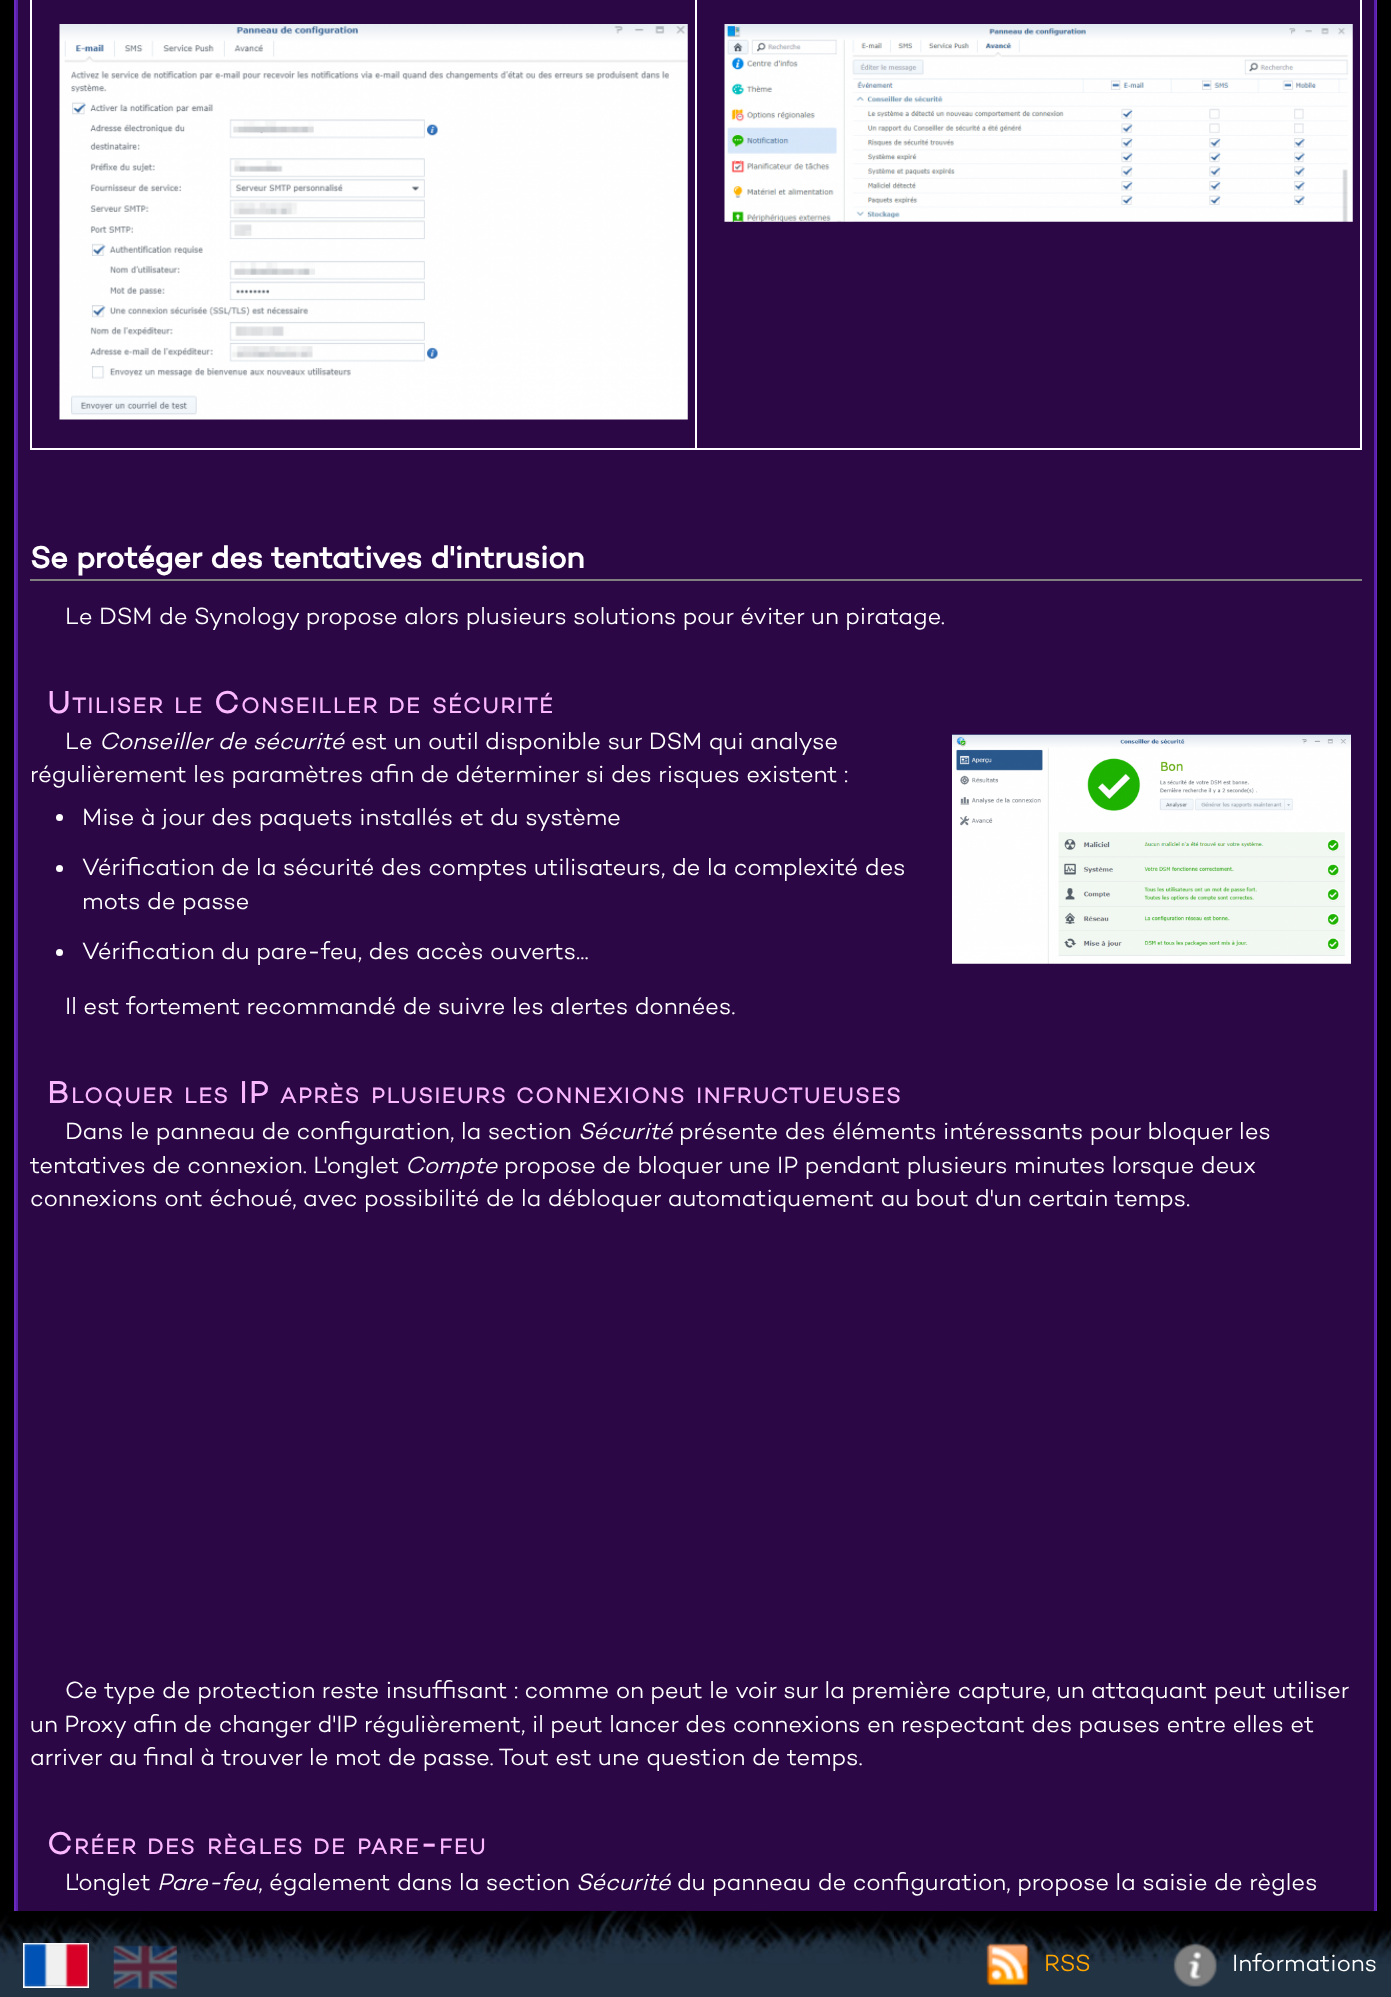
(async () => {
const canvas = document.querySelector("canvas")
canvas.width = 1391
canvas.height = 1997
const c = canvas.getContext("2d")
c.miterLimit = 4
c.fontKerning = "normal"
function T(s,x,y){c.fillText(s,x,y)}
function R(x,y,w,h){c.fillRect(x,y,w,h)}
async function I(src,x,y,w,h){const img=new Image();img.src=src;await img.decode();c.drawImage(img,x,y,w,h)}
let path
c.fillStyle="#000"
R(0,0,1391,1997)
c.fillStyle="#6a2bbd"
path = new Path2D("M18 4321h1359v-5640h-1v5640z")
c.fill(path)
path = new Path2D("M14-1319v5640h1360h-1358v-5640z")
c.fill(path)
c.fillStyle="#2c0745"
R(18,0,1356,1911)
c.fillStyle="#5a1ead"
R(1374,0,2,1911)
R(16,0,2,1911)
c.fillStyle="#fff"
R(1360,0,2,450)
R(30,448,1332,2)
R(30,0,2,450)
await I("1.png",59,24,629,396)
R(695,0,2,450)
await I("2.png",724,24,629,198)
c.fillStyle="#808080"
R(30,579,1332,2)
c.font="bold 30.9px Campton"
c.fillStyle="#fff"
T("Se protéger des tentatives d'intrusion",30,568)
c.font="300 23.8px Campton"
T("Le DSM de Synology propose alors plusieurs solutions pour éviter un piratage.",65,624)
c.letterSpacing="1.75px"
c.font="bold 30.9px 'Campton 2'"
c.fillStyle="#fbb8ff"
T("U",47,713)
c.font="bold 21.75px 'Campton 2'"
T("TILISER",72,713)
T("LE",174,713)
c.font="bold 30.9px 'Campton 2'"
T("C",214,713)
c.font="bold 21.75px 'Campton 2'"
T("ONSEILLER",241,713)
T("DE",388,713)
T("SÉCURITÉ",432,713)
c.letterSpacing="0px"
c.font="300 23.8px Campton"
c.fillStyle="#fff"
T("Le",65,749)
c.font="italic 300 23.8px Campton"
T("Conseiller de sécurité",99,749)
c.font="300 23.8px Campton"
T("est un outil disponible sur DSM qui analyse",351,749)
await I("3.png",952,734,399,230)
T("régulièrement les paramètres afin de déterminer si des risques existent :",30,782)
c.beginPath()
c.arc(59.5,817.5,3.5,0,7)
c.fill()
T("Mise à jour des paquets installés et du système",82,825)
c.beginPath()
c.arc(59.5,868.5,3.5,0,7)
c.fill()
T("Vérification de la sécurité des comptes utilisateurs, de la complexité des",82,875)
T("mots de passe",82,909)
c.beginPath()
c.arc(59.5,952.5,3.5,0,7)
c.fill()
T("Vérification du pare-feu, des accès ouverts...",82,959)
T("Il est fortement recommandé de suivre les alertes données.",65,1014)
c.letterSpacing="1.75px"
c.font="bold 30.9px 'Campton 2'"
c.fillStyle="#fbb8ff"
T("B",47,1103)
c.font="bold 21.75px 'Campton 2'"
T("LOQUER",71,1103)
T("LES",184,1103)
c.font="bold 30.9px 'Campton 2'"
T("IP",239,1103)
c.font="bold 21.75px 'Campton 2'"
T("APRÈS",280,1103)
T("PLUSIEURS",371,1103)
T("CONNEXIONS",516,1103)
T("INFRUCTUEUSES",696,1103)
c.letterSpacing="0px"
c.font="300 23.8px Campton"
c.fillStyle="#fff"
T("Dans le panneau de configuration, la section",65,1139)
c.font="italic 300 23.8px Campton"
T("Sécurité",578,1139)
c.font="300 23.8px Campton"
T("présente des éléments intéressants pour bloquer les",679,1139)
T("tentatives de connexion. L'onglet",30,1173)
c.font="italic 300 23.8px Campton"
T("Compte",405,1173)
c.font="300 23.8px Campton"
T("propose de bloquer une IP pendant plusieurs minutes lorsque deux",504,1173)
T("connexions ont échoué, avec possibilité de la débloquer automatiquement au bout d'un certain temps.",30,1206)
T("Ce type de protection reste insuffisant : comme on peut le voir sur la première capture, un attaquant peut utiliser",65,1698)
T("un Proxy afin de changer d'IP régulièrement, il peut lancer des connexions en respectant des pauses entre elles et",30,1732)
T("arriver au final à trouver le mot de passe. Tout est une question de temps.",30,1765)
c.letterSpacing="1.75px"
c.font="bold 30.9px 'Campton 2'"
c.fillStyle="#fbb8ff"
T("C",47,1854)
c.font="bold 21.75px 'Campton 2'"
T("RÉER",74,1854)
T("DES",147,1854)
T("RÈGLES",207,1854)
T("DE",313,1854)
T("PARE",357,1854)
c.font="bold 30.9px 'Campton 2'"
T("-",420,1854)
c.font="bold 21.75px 'Campton 2'"
T("FEU",439,1854)
c.letterSpacing="0px"
c.font="300 23.8px Campton"
c.fillStyle="#fff"
T("L'onglet",65,1890)
c.font="italic 300 23.8px Campton"
T("Pare-feu",157,1890)
c.font="300 23.8px Campton"
T(", également dans la section",258,1890)
c.font="italic 300 23.8px Campton"
T("Sécurité",576,1890)
c.font="300 23.8px Campton"
T("du panneau de configuration, propose la saisie de règles",677,1890)
c.fillStyle="#234"
R(0,1963,1391,34)
await I("4.png",0,1911,1391,53)
c.strokeStyle="#fff"
c.lineWidth=2
c.strokeRect(24,1944,64,43)
await I("5.png",23,1943,65,44)
await I("6.png",113,1945,64,44)
await I("7.png",986,1943,44,43)
c.fillStyle="#ffa500"
T("RSS",1044,1971)
await I("8.png",1173,1943,44,44)
c.fillStyle="#fff"
T("Informations",1232,1971)
})()
